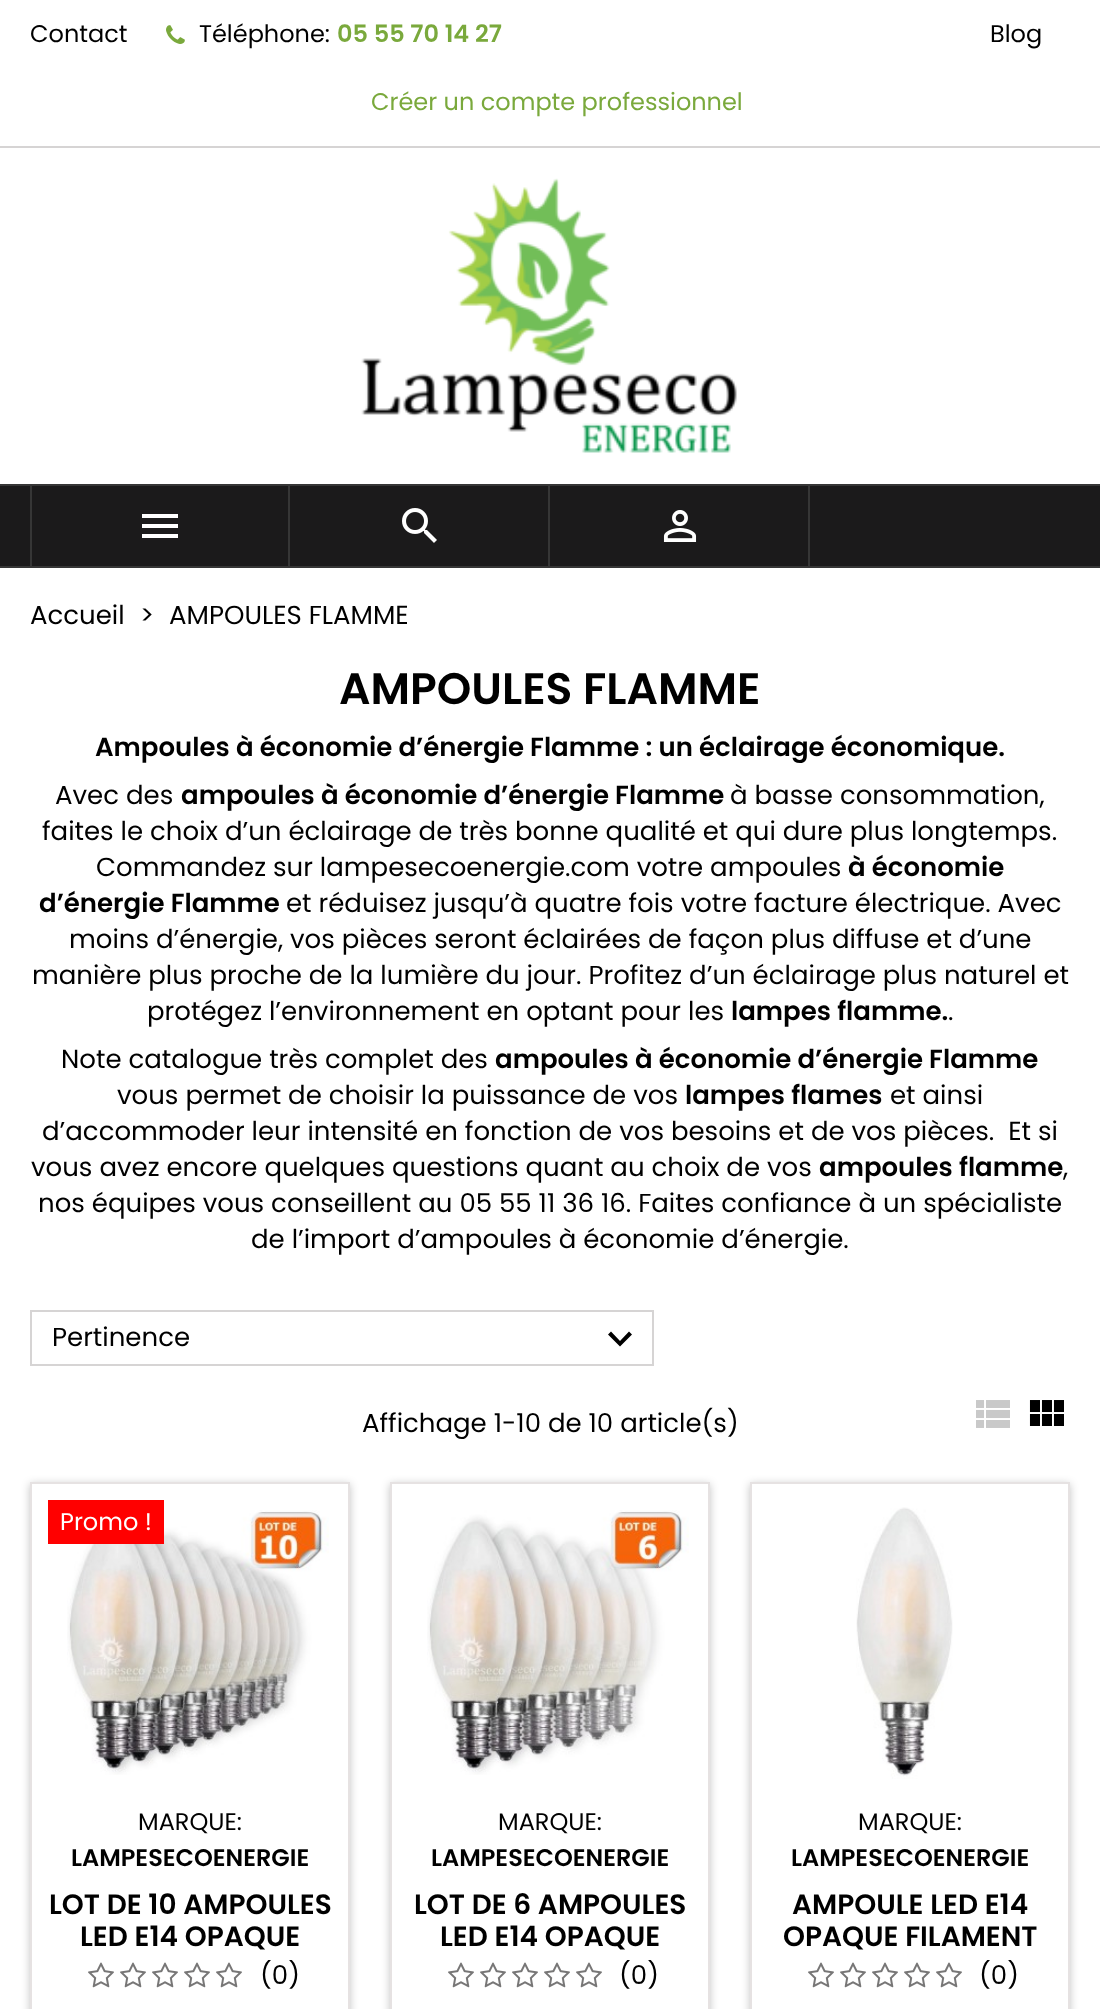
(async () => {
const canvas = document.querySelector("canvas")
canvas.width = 1100
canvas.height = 2009
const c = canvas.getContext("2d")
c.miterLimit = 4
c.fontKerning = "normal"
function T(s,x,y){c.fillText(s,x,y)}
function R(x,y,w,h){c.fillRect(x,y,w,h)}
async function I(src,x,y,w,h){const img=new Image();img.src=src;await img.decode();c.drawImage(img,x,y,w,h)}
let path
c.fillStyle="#fff"
R(0,0,1100,2009)
c.fillStyle="#d6d4d4"
R(0,146,1100,2)
c.font="24px Poppins"
c.fillStyle="#000"
T("Contact",30,42)
await I("1.png",166,25,19,19)
T("Téléphone:",199,42)
c.font="600 24px Poppins"
c.fillStyle="#7aa93c"
T("05 55 70 14 27",337,42)
c.font="24px Poppins"
c.fillStyle="#000"
T("Blog",990,42)
c.fillStyle="#7aa93c"
T("Créer un compte professionnel",371,110)
await I("2.png",361,178,376,275)
c.fillStyle="#1b1a1b"
R(0,486,1100,80)
c.fillStyle="#363636"
R(0,484,1100,2)
R(0,566,1100,2)
R(288,486,2,80)
R(30,486,2,80)
c.fillStyle="#fff"
path = new Path2D("M142 514h36v4h-36zm0 14v-4h36v4zm0 10v-4h36v4z")
c.fill(path)
c.fillStyle="#363636"
R(548,486,2,80)
await I("3.png",402,508,35,35)
R(808,486,2,80)
await I("4.png",663,510,34,32)
c.font="26px Poppins"
c.fillStyle="#000"
T("Accueil",30,624)
T(">",140,624)
T("AMPOULES FLAMME",169,624)
c.font="600 44px Poppins"
T("AMPOULES FLAMME",339,704)
c.font="600 26px Poppins"
T("Ampoules à économie d’énergie Flamme : un éclairage économique.",95,756)
c.font="26px Poppins"
T("Avec des",55,804)
c.font="600 26px Poppins"
T("ampoules à économie d’énergie Flamme",181,804)
c.font="26px Poppins"
T("à basse consommation,",730,804)
T("faites le choix d’un éclairage de très bonne qualité et qui dure plus longtemps.",42,840)
T("Commandez sur lampesecoenergie.com votre ampoules",96,876)
c.font="600 26px Poppins"
T("à économie",848,876)
T("d’énergie Flamme",39,912)
c.font="26px Poppins"
T("et réduisez jusqu’à quatre fois votre facture électrique. Avec",286,912)
T("moins d’énergie, vos pièces seront éclairées de façon plus diffuse et d’une",69,948)
T("manière plus proche de la lumière du jour. Profitez d’un éclairage plus naturel et",32,984)
T("protégez l’environnement en optant pour les",147,1020)
c.font="600 26px Poppins"
T("lampes flamme.",731,1020)
c.font="26px Poppins"
T(".",948,1020)
T("Note catalogue très complet des",61,1068)
c.font="600 26px Poppins"
T("ampoules à économie d’énergie Flamme",495,1068)
c.font="26px Poppins"
T("vous permet de choisir la puissance de vos",117,1104)
c.font="600 26px Poppins"
T("lampes flames",685,1104)
c.font="26px Poppins"
T("et ainsi",890,1104)
T("d’accommoder leur intensité en fonction de vos besoins et de vos pièces.  Et si",42,1140)
T("vous avez encore quelques questions quant au choix de vos",31,1176)
c.font="600 26px Poppins"
T("ampoules flamme",819,1176)
c.font="26px Poppins"
T(",",1063,1176)
T("nos équipes vous conseillent au 05 55 11 36 16. Faites confiance à un spécialiste",38,1212)
T("de l’import d’ampoules à économie d’énergie.",251,1248)
c.strokeStyle="#d6d4d4"
c.lineWidth=2
c.strokeRect(31,1311,622,54)
T("Pertinence",52,1346)
path = new Path2D("M611 1331.5l9 9.5l9-9.5l3 3l-12 12l-12-12z")
c.fill(path)
T("Affichage 1-10 de 10 article(s)",362,1432)
await I("5.png",976,1400,34,28)
await I("6.png",1029,1400,35,26)
c.save()
path = new Path2D("M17 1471h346v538h-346zm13 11h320v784h-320z")
c.clip(path,"evenodd")
c.fillStyle="#0000003d"
c.filter="blur(4px)"
c.beginPath()
c.rect(30,1484,320,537)
c.fill()
c.filter="none"
c.restore()
c.strokeStyle="#e6e2e2"
c.strokeRect(31,1483,318,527)
await I("7.png",67,1510,262,265)
c.fillStyle="#f00"
R(48,1500,116,44)
c.font="24px Poppins"
c.fillStyle="#fff"
T("Promo !",60,1530)
c.fillStyle="#000"
T("MARQUE:",138,1830)
c.font="600 24px Poppins"
T("LAMPESECOENERGIE",71,1866)
c.font="600 28px Poppins"
T("LOT DE 10 AMPOULES",49,1914)
T("LED E14 OPAQUE",80,1946)
await I("8.png",88,1962,26,26)
await I("8.png",120,1962,26,26)
await I("8.png",152,1962,26,26)
await I("8.png",184,1962,26,26)
await I("8.png",216,1962,26,26)
c.save()
c.beginPath()
c.rect(256,1960,44,32)
c.clip()
c.font="26px Poppins"
T("(0)",260,1984)
c.restore()
c.save()
path = new Path2D("M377 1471h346v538h-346zm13 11h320v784h-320z")
c.clip(path,"evenodd")
c.fillStyle="#0000003d"
c.filter="blur(4px)"
c.beginPath()
c.rect(390,1484,320,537)
c.fill()
c.filter="none"
c.restore()
c.strokeRect(391,1483,318,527)
await I("9.png",427,1510,262,265)
c.font="24px Poppins"
T("MARQUE:",498,1830)
c.font="600 24px Poppins"
T("LAMPESECOENERGIE",431,1866)
c.font="600 28px Poppins"
T("LOT DE 6 AMPOULES",414,1914)
T("LED E14 OPAQUE",440,1946)
await I("8.png",448,1962,26,26)
await I("8.png",480,1962,26,26)
await I("8.png",512,1962,26,26)
await I("8.png",544,1962,26,26)
await I("8.png",576,1962,26,26)
c.save()
c.beginPath()
c.rect(616,1960,44,32)
c.clip()
c.font="26px Poppins"
T("(0)",619,1984)
c.restore()
c.save()
path = new Path2D("M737 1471h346v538h-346zm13 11h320v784h-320z")
c.clip(path,"evenodd")
c.fillStyle="#0000003d"
c.filter="blur(4px)"
c.beginPath()
c.rect(750,1484,320,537)
c.fill()
c.filter="none"
c.restore()
c.strokeRect(751,1483,318,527)
await I("10.png",856,1507,97,272)
c.font="24px Poppins"
T("MARQUE:",858,1830)
c.font="600 24px Poppins"
T("LAMPESECOENERGIE",791,1866)
c.font="600 28px Poppins"
T("AMPOULE LED E14",792,1914)
T("OPAQUE FILAMENT",783,1946)
await I("8.png",808,1962,26,26)
await I("8.png",840,1962,26,26)
await I("8.png",872,1962,26,26)
await I("8.png",904,1962,26,26)
await I("8.png",936,1962,26,26)
c.save()
c.beginPath()
c.rect(976,1960,44,32)
c.clip()
c.font="26px Poppins"
T("(0)",979,1984)
c.restore()
})()
